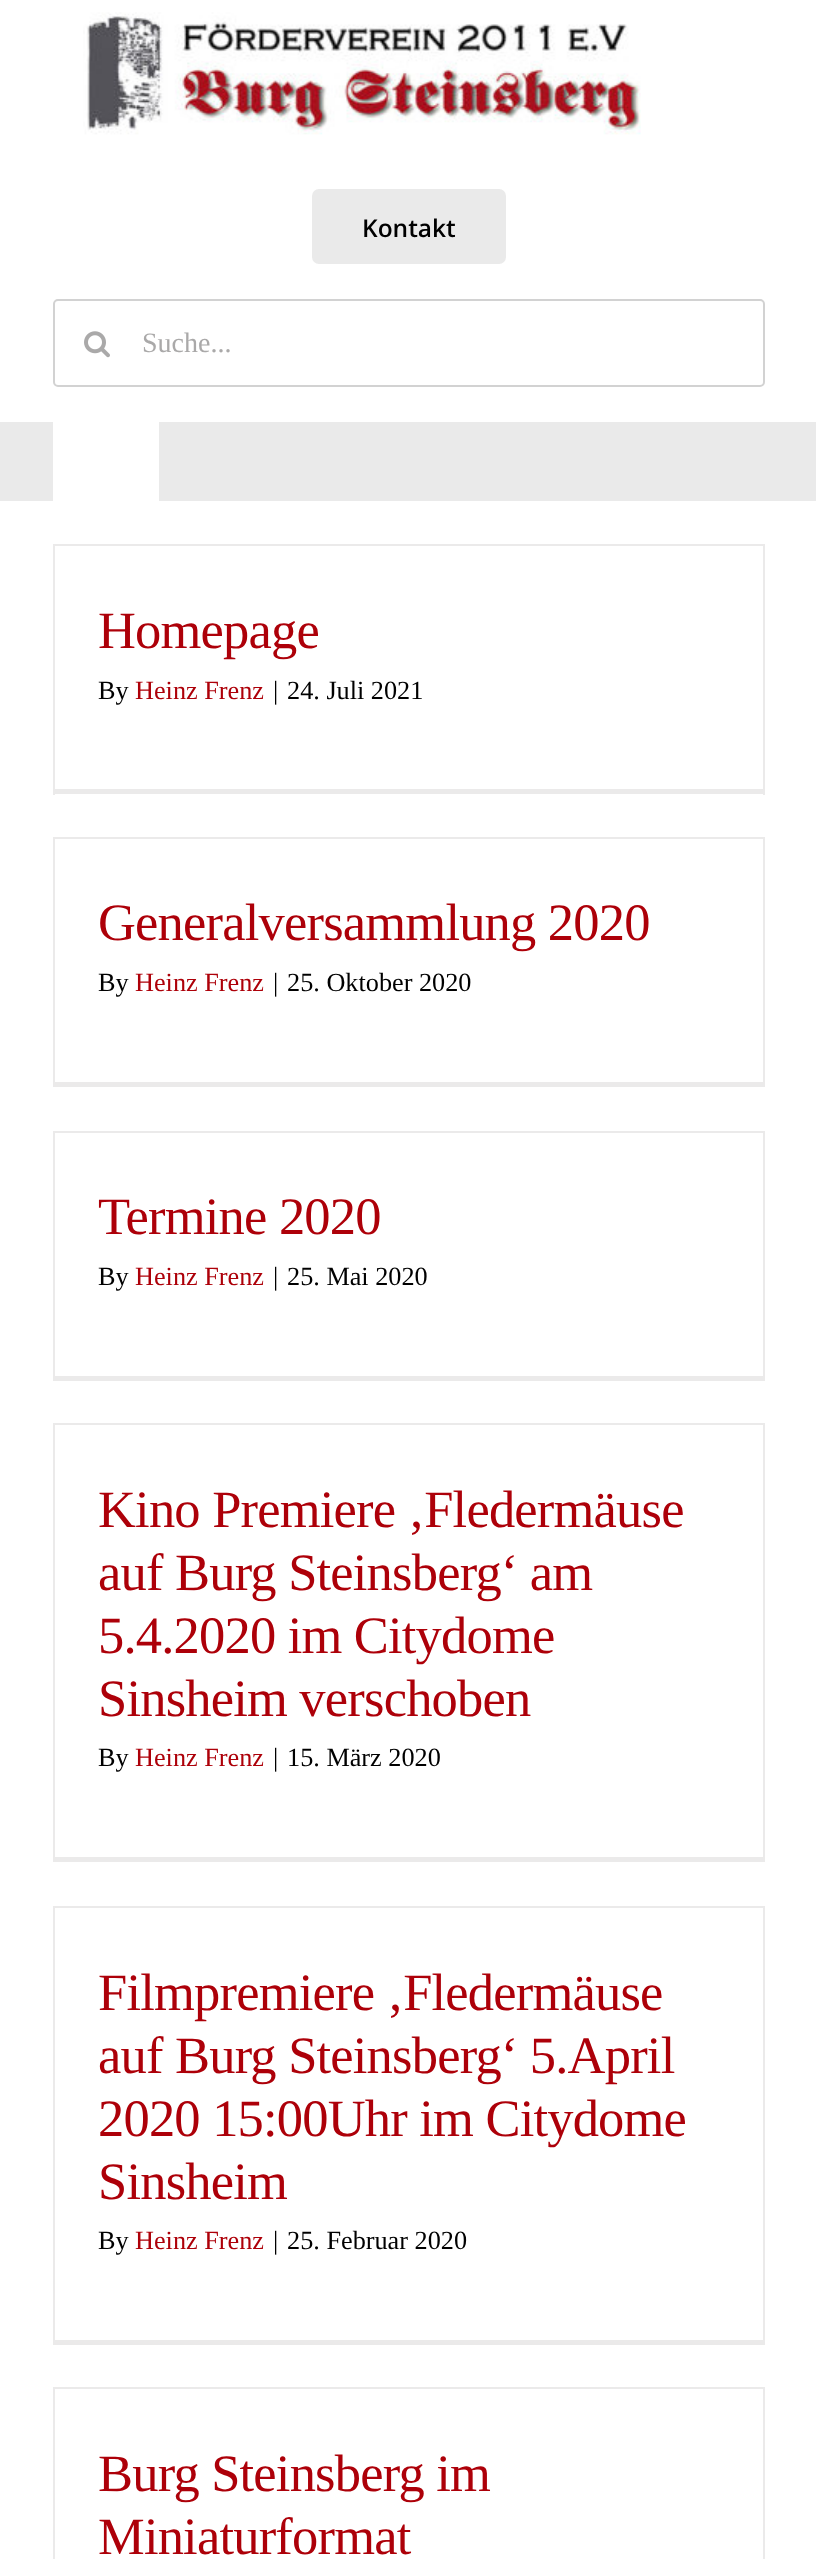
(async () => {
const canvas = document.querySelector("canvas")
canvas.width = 816
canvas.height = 2559
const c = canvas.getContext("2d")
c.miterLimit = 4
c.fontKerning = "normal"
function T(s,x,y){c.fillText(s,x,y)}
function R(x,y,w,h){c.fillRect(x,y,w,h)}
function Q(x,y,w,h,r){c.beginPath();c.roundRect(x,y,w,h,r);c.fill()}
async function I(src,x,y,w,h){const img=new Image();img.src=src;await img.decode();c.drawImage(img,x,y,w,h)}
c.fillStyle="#fff"
R(0,0,816,2559)
await I("1.png",83,12,558,123)
c.fillStyle="#eaeaea"
Q(312,189,194,75,7)
c.font="600 24.5px Open Sans"
c.fillStyle="#000"
T("Kontakt",362,237)
c.beginPath()
c.roundRect(54,300,710,86,4)
c.strokeStyle="#d2d2d2"
c.lineWidth=2
c.stroke()
await I("2.png",84,331,26,27)
c.font="28px Liberation Serif"
c.fillStyle="#aaa9a9"
T("Suche...",142,352)
c.fillStyle="#eaeaea"
R(0,422,816,79)
c.fillStyle="#fff"
R(53,422,106,79)
c.fillStyle="#ebeaea"
R(53,544,712,2)
R(763,544,2,251)
R(53,789,712,5)
R(53,544,2,251)
c.letterSpacing="-0.8px"
c.font="52.5px Liberation Serif"
c.fillStyle="#ad0009"
T("Homepage",98,648)
c.letterSpacing="0px"
c.font="26.25px Liberation Serif"
c.fillStyle="#000"
T("By",98,699)
c.fillStyle="#ad0009"
T("Heinz Frenz",135,699)
c.fillStyle="#000"
T("|",273,699)
T("24. Juli 2021",287,699)
c.fillStyle="#ebeaea"
R(53,837,712,2)
R(763,837,2,250)
R(53,1082,712,5)
R(53,837,2,250)
c.letterSpacing="-0.8px"
c.font="52.5px Liberation Serif"
c.fillStyle="#ad0009"
T("Generalversammlung 2020",98,940)
c.letterSpacing="0px"
c.font="26.25px Liberation Serif"
c.fillStyle="#000"
T("By",98,991)
c.fillStyle="#ad0009"
T("Heinz Frenz",135,991)
c.fillStyle="#000"
T("|",273,991)
T("25. Oktober 2020",287,991)
c.fillStyle="#ebeaea"
R(53,1131,712,2)
R(763,1131,2,250)
R(53,1376,712,5)
R(53,1131,2,250)
c.letterSpacing="-0.8px"
c.font="52.5px Liberation Serif"
c.fillStyle="#ad0009"
T("Termine 2020",98,1234)
c.letterSpacing="0px"
c.font="26.25px Liberation Serif"
c.fillStyle="#000"
T("By",98,1285)
c.fillStyle="#ad0009"
T("Heinz Frenz",135,1285)
c.fillStyle="#000"
T("|",273,1285)
T("25. Mai 2020",287,1285)
c.fillStyle="#ebeaea"
R(53,1423,712,2)
R(763,1423,2,439)
R(53,1857,712,5)
R(53,1423,2,439)
c.letterSpacing="-0.8px"
c.font="52.5px Liberation Serif"
c.fillStyle="#ad0009"
T("Kino Premiere ‚Fledermäuse",98,1527)
T("auf Burg Steinsberg‘ am",98,1590)
T("5.4.2020 im Citydome",98,1653)
T("Sinsheim verschoben",98,1716)
c.letterSpacing="0px"
c.font="26.25px Liberation Serif"
c.fillStyle="#000"
T("By",98,1766)
c.fillStyle="#ad0009"
T("Heinz Frenz",135,1766)
c.fillStyle="#000"
T("|",273,1766)
T("15. März 2020",287,1766)
c.fillStyle="#ebeaea"
R(53,1906,712,2)
R(763,1906,2,439)
R(53,2340,712,5)
R(53,1906,2,439)
c.letterSpacing="-0.8px"
c.font="52.5px Liberation Serif"
c.fillStyle="#ad0009"
T("Filmpremiere ‚Fledermäuse",98,2010)
T("auf Burg Steinsberg‘ 5.April",98,2073)
T("2020 15:00Uhr im Citydome",98,2136)
T("Sinsheim",98,2199)
c.letterSpacing="0px"
c.font="26.25px Liberation Serif"
c.fillStyle="#000"
T("By",98,2249)
c.fillStyle="#ad0009"
T("Heinz Frenz",135,2249)
c.fillStyle="#000"
T("|",273,2249)
T("25. Februar 2020",287,2249)
c.fillStyle="#ebeaea"
R(53,2387,712,2)
R(763,2387,2,172)
R(53,2387,2,172)
c.letterSpacing="-0.8px"
c.font="52.5px Liberation Serif"
c.fillStyle="#ad0009"
T("Burg Steinsberg im",98,2491)
T("Miniaturformat",98,2554)
})()
